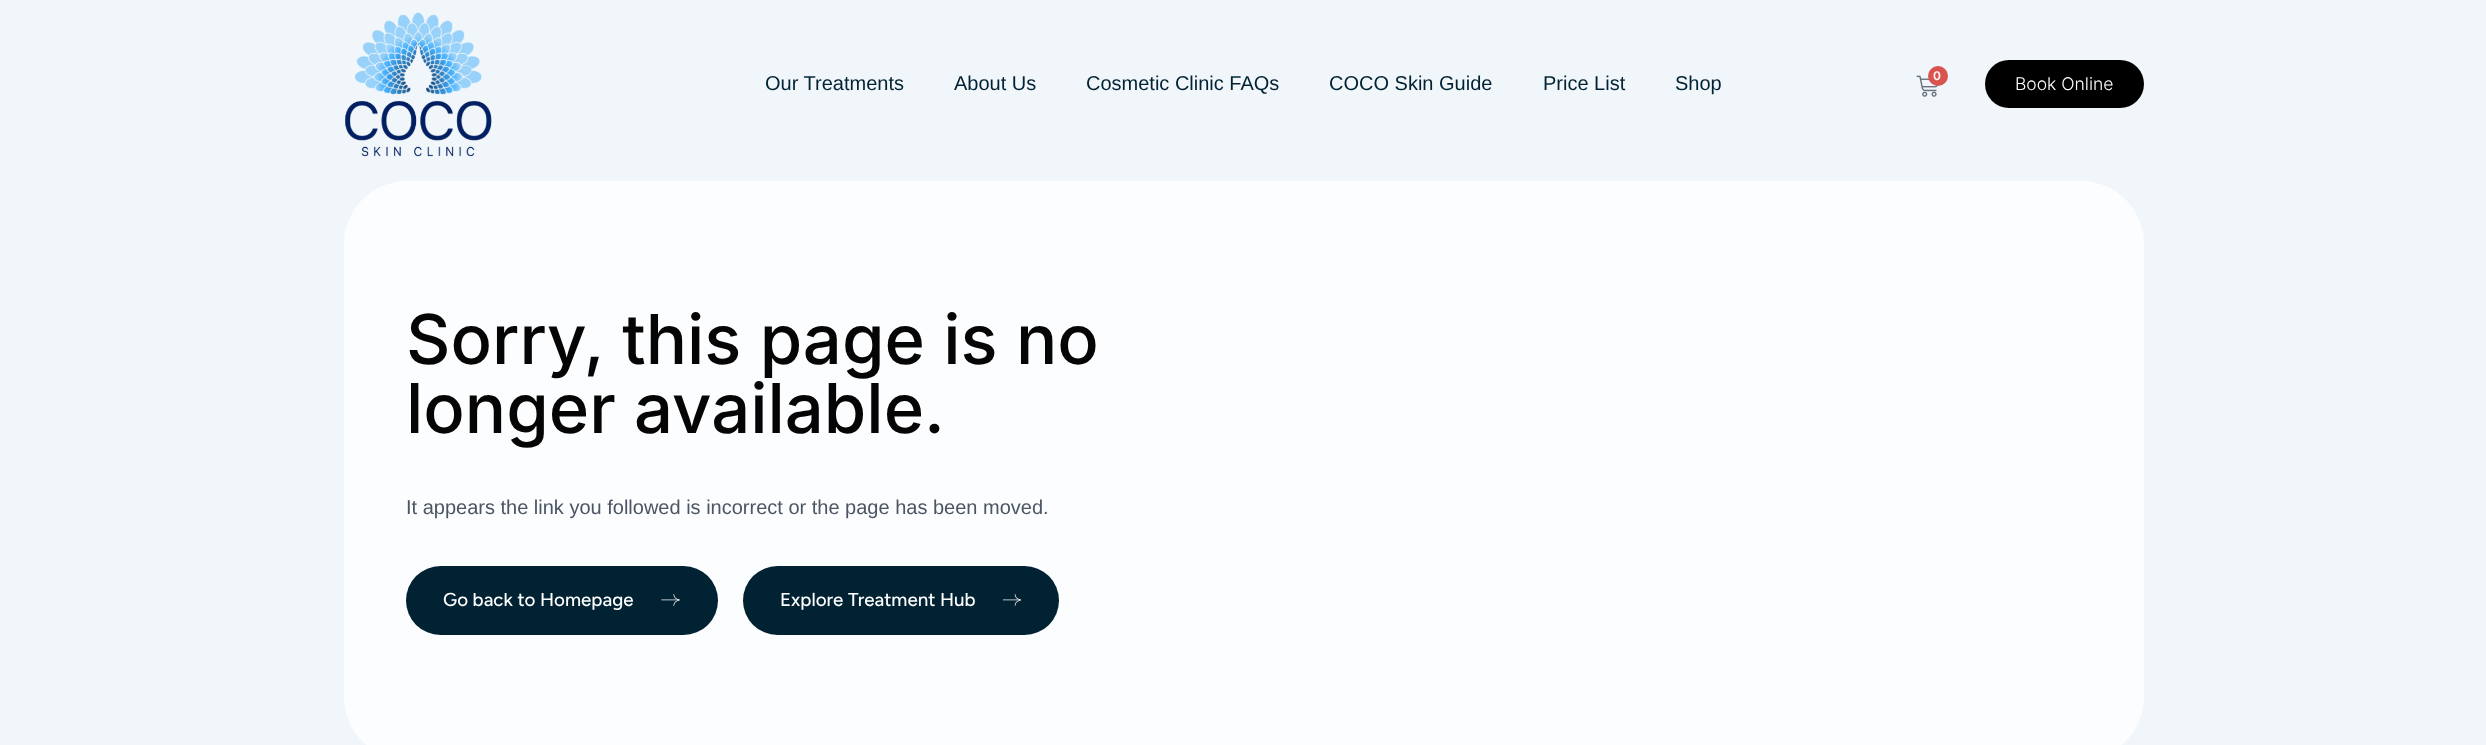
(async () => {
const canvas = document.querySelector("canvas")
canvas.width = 2486
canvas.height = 745
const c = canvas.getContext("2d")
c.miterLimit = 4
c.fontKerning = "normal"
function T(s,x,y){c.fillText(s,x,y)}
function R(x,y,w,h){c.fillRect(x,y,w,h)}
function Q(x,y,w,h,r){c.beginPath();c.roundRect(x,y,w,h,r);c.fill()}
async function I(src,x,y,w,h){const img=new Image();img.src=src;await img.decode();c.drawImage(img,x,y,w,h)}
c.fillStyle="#f0f6fa"
R(0,0,2486,745)
await I("1.png",345,12,147,145)
c.font="20px Liberation Sans"
c.fillStyle="#023"
T("Our Treatments",765,90)
T("About Us",954,90)
T("Cosmetic Clinic FAQs",1086,90)
T("COCO Skin Guide",1329,90)
T("Price List",1543,90)
T("Shop",1675,90)
await I("2.png",1916,75,22,22)
c.fillStyle="#d9534f"
c.beginPath()
c.arc(1938,76,10,0,7)
c.fill()
c.font="600 12px Inter"
c.fillStyle="#fff"
T("0",1933,80)
c.fillStyle="#000"
Q(1985,60,159,48,24)
c.font="300 17.5px Inter"
c.fillStyle="#fff"
T("Book Online",2015,90)
c.fillStyle="#fcfdfe"
Q(344,181,1800,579,63)
c.font="500 68.75px Inter"
c.fillStyle="#050505"
T("Sorry, this page is no",406,364)
T("longer available.",406,433)
c.font="20px Liberation Sans"
c.fillStyle="#4b5563"
T("It appears the link you followed is incorrect or the page has been moved.",406,514)
c.fillStyle="#023"
Q(406,566,312,69,34.5)
c.font="500 18.75px Figtree"
c.fillStyle="#fff"
T("Go back to Homepage",443,606)
await I("3.png",661,594,19,12)
c.fillStyle="#023"
Q(743,566,316,69,34.5)
c.fillStyle="#fff"
T("Explore Treatment Hub",780,606)
await I("4.png",1003,594,18,12)
})()
